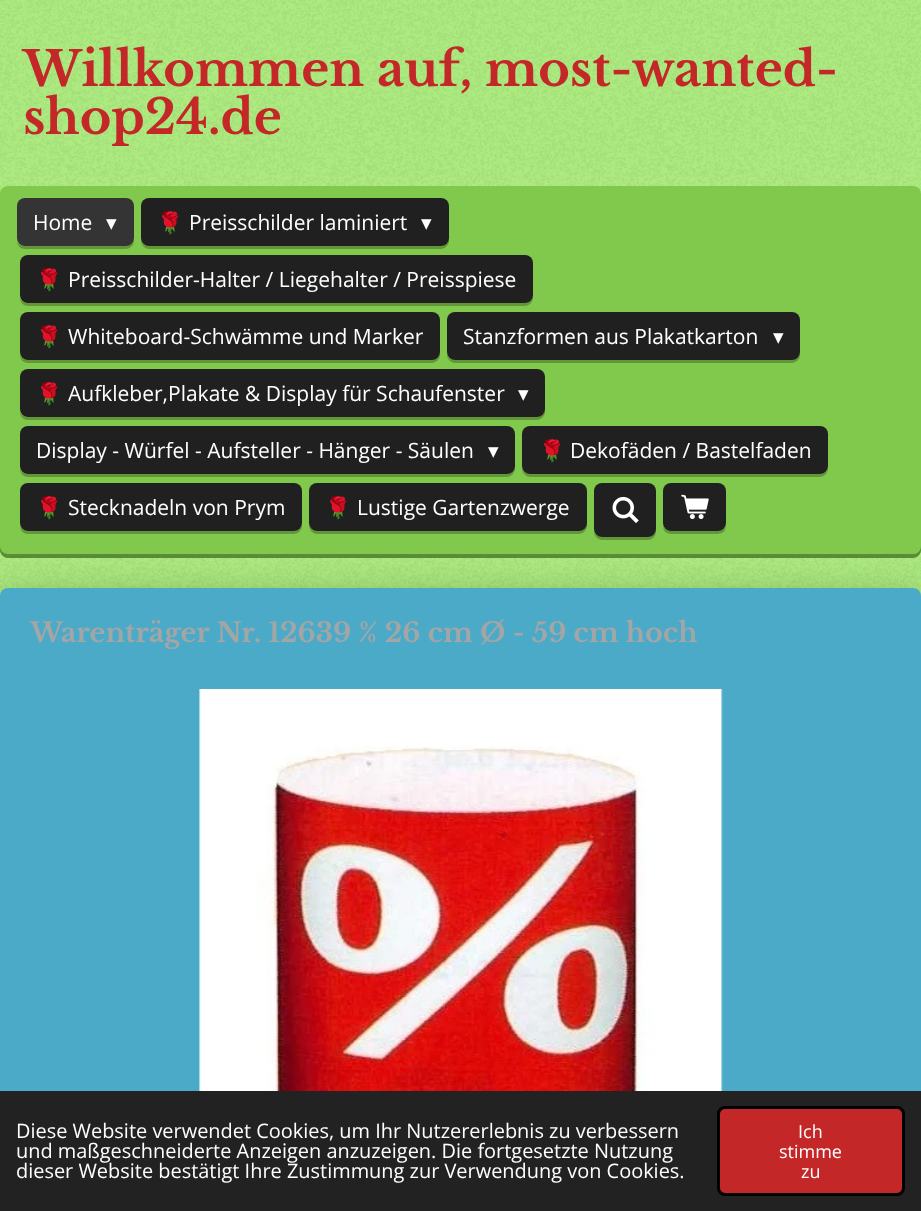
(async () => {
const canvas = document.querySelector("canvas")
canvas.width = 921
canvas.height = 1211
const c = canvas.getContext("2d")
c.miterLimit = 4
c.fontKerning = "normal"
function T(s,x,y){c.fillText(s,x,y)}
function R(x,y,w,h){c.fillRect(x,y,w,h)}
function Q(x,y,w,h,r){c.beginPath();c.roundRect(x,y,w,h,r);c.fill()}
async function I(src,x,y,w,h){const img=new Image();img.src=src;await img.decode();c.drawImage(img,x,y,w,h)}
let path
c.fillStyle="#adea80"
R(0,0,921,1211)
await I("1.png",0,0,921,594)
c.font="bold 48px Libre Baskerville"
c.fillStyle="#c42727"
T("Willkommen auf, most-wanted-",23,86)
T("shop24.de",23,134)
c.fillStyle="#81c94c"
Q(0,186,921,372,8)
c.fillStyle="#5a8d35"
path = new Path2D("M0 546v4c0 4 4 8 8 8h905c4 0 8-4 8-8v-4c0 4-3 8-7 8h-906c-5 0-8-4-8-8z")
c.fill(path)
c.fillStyle="#619739"
path = new Path2D("M17 241c0 5 4 8 8 8h101c4 0 8-4 8-8v-32v-3v32c0 5-4 8-8 8h-102c-3 0-6-2-7-5z")
c.fill(path)
c.fillStyle="#343434"
Q(17,198,117,48,8)
c.font="21px Open Sans"
c.fillStyle="#fff"
T("Home",33,230)
c.font="21px DejaVu Sans"
T("▾",106,230)
c.fillStyle="#619739"
path = new Path2D("M141 238v3c0 4 4 8 8 8h292c4 0 8-4 8-8v-32l-1-3v32c0 5-3 8-7 8h-293c-4 0-7-3-7-8z")
c.fill(path)
c.fillStyle="#202020"
Q(141,198,308,48,8)
c.font="21px Noto Color Emoji"
c.fillStyle="#fff"
T("🌹",157,230)
c.font="21px Open Sans"
T("Preisschilder laminiert",189,230)
c.font="21px DejaVu Sans"
T("▾",421,230)
c.fillStyle="#619739"
path = new Path2D("M20 298c0 5 4 8 8 8h497c4 0 8-4 8-8v-32l-1-3v33c0 4-3 7-7 7h-498c-3 0-6-2-7-5z")
c.fill(path)
c.fillStyle="#202020"
Q(20,255,513,48,8)
c.font="21px Noto Color Emoji"
c.fillStyle="#fff"
T("🌹",36,287)
c.font="21px Open Sans"
T("Preisschilder-Halter / Liegehalter / Preisspiese",68,287)
c.fillStyle="#619739"
path = new Path2D("M20 355c0 5 4 8 8 8h404c4 0 8-4 8-8v-32v-3v32c0 5-4 8-8 8h-405c-3 0-6-2-7-5z")
c.fill(path)
c.fillStyle="#202020"
Q(20,312,420,48,8)
c.font="21px Noto Color Emoji"
c.fillStyle="#fff"
T("🌹",36,344)
c.font="21px Open Sans"
T("Whiteboard-Schwämme und Marker",68,344)
c.fillStyle="#619739"
path = new Path2D("M447 352v3c0 4 4 8 8 8h337c4 0 8-4 8-8v-32v-3v32c0 5-4 8-8 8h-338c-4 0-7-3-7-8z")
c.fill(path)
c.fillStyle="#202020"
Q(447,312,353,48,8)
c.fillStyle="#fff"
T("Stanzformen aus Plakatkarton",463,344)
c.font="21px DejaVu Sans"
T("▾",773,344)
c.fillStyle="#619739"
path = new Path2D("M20 412c0 5 4 8 8 8h509c4 0 8-4 8-8v-32l-1-3v33c0 4-3 7-7 7h-510c-3 0-6-2-7-5z")
c.fill(path)
c.fillStyle="#202020"
Q(20,369,525,48,8)
c.font="21px Noto Color Emoji"
c.fillStyle="#fff"
T("🌹",36,401)
c.font="21px Open Sans"
T("Aufkleber,Plakate & Display für Schaufenster",68,401)
c.font="21px DejaVu Sans"
T("▾",518,401)
c.fillStyle="#619739"
path = new Path2D("M20 469c0 5 4 8 8 8h479c4 0 8-4 8-8v-32l-1-3v32c0 5-3 8-7 8h-480c-3 0-6-2-7-5z")
c.fill(path)
c.fillStyle="#202020"
Q(20,426,495,48,8)
c.font="21px Open Sans"
c.fillStyle="#fff"
T("Display - Würfel - Aufsteller - Hänger - Säulen",36,458)
c.font="21px DejaVu Sans"
T("▾",488,458)
c.fillStyle="#619739"
path = new Path2D("M522 466v3c0 4 4 8 8 8h290c4 0 8-4 8-8v-3c0 5-3 8-8 8h-290c-5 0-8-3-8-8z")
c.fill(path)
c.fillStyle="#202020"
Q(522,426,306,48,8)
c.font="21px Noto Color Emoji"
c.fillStyle="#fff"
T("🌹",539,458)
c.font="21px Open Sans"
T("Dekofäden / Bastelfaden",570,458)
c.fillStyle="#619739"
path = new Path2D("M20 526c0 5 4 8 8 8h266c4 0 8-4 8-8v-32v-3v33c0 4-4 7-8 7h-267c-3 0-6-2-7-5z")
c.fill(path)
c.fillStyle="#202020"
Q(20,483,282,48,8)
c.font="21px Noto Color Emoji"
c.fillStyle="#fff"
T("🌹",36,515)
c.font="21px Open Sans"
T("Stecknadeln von Prym",68,515)
c.fillStyle="#619739"
path = new Path2D("M309 524v2c0 4 4 8 8 8h262c4 0 8-4 8-8v-32l-1-3v33c0 4-3 7-7 7h-263c-4 0-7-3-7-7z")
c.fill(path)
c.fillStyle="#202020"
Q(309,483,278,48,8)
c.font="21px Noto Color Emoji"
c.fillStyle="#fff"
T("🌹",325,515)
c.font="21px Open Sans"
T("Lustige Gartenzwerge",357,515)
c.fillStyle="#00000040"
c.filter="blur(19px)"
c.beginPath()
c.roundRect(0,596,921,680,8)
c.fill()
c.filter="none"
c.fillStyle="#619739"
path = new Path2D("M594 530v2c0 4 4 8 8 8h46c4 0 8-4 8-8v-38v-3v39c0 4-4 7-8 7h-46c-5 0-8-3-8-7z")
c.fill(path)
c.fillStyle="#202020"
Q(594,483,62,54,8)
await I("2.png",612,496,27,27)
c.fillStyle="#619739"
path = new Path2D("M663 524c0 11 6 10 16 10h31c10 0 16 1 16-10c0 4-3 7-8 7h-48c-4 0-7-3-7-7z")
c.fill(path)
c.fillStyle="#202020"
Q(663,483,63,48,8)
await I("3.png",681,494,28,25)
c.fillStyle="#4caac9"
Q(0,588,921,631,8)
c.font="bold 27px Libre Baskerville"
c.fillStyle="#a4a5a5"
T("Warenträger Nr. 12639 % 26 cm Ø - 59 cm hoch",30,642)
await I("4.png",199,689,524,402)
c.fillStyle="#222"
R(0,1091,921,120)
c.font="19.95px Open Sans"
c.fillStyle="#fff"
T("Diese Website verwendet Cookies, um Ihr Nutzererlebnis zu verbessern",16,1138)
T("und maßgeschneiderte Anzeigen anzuzeigen. Die fortgesetzte Nutzung",16,1158)
T("dieser Website bestätigt Ihre Zustimmung zur Verwendung von Cookies.",16,1178)
c.fillStyle="#c42727"
c.beginPath()
c.roundRect(718.5,1107.5,185,87,6.5)
c.fill()
c.strokeStyle="#000"
c.lineWidth=3
c.stroke()
c.font="18px Open Sans"
c.fillStyle="#fff"
T("Ich",798,1138)
T("stimme",779,1158)
T("zu",801,1178)
})()
